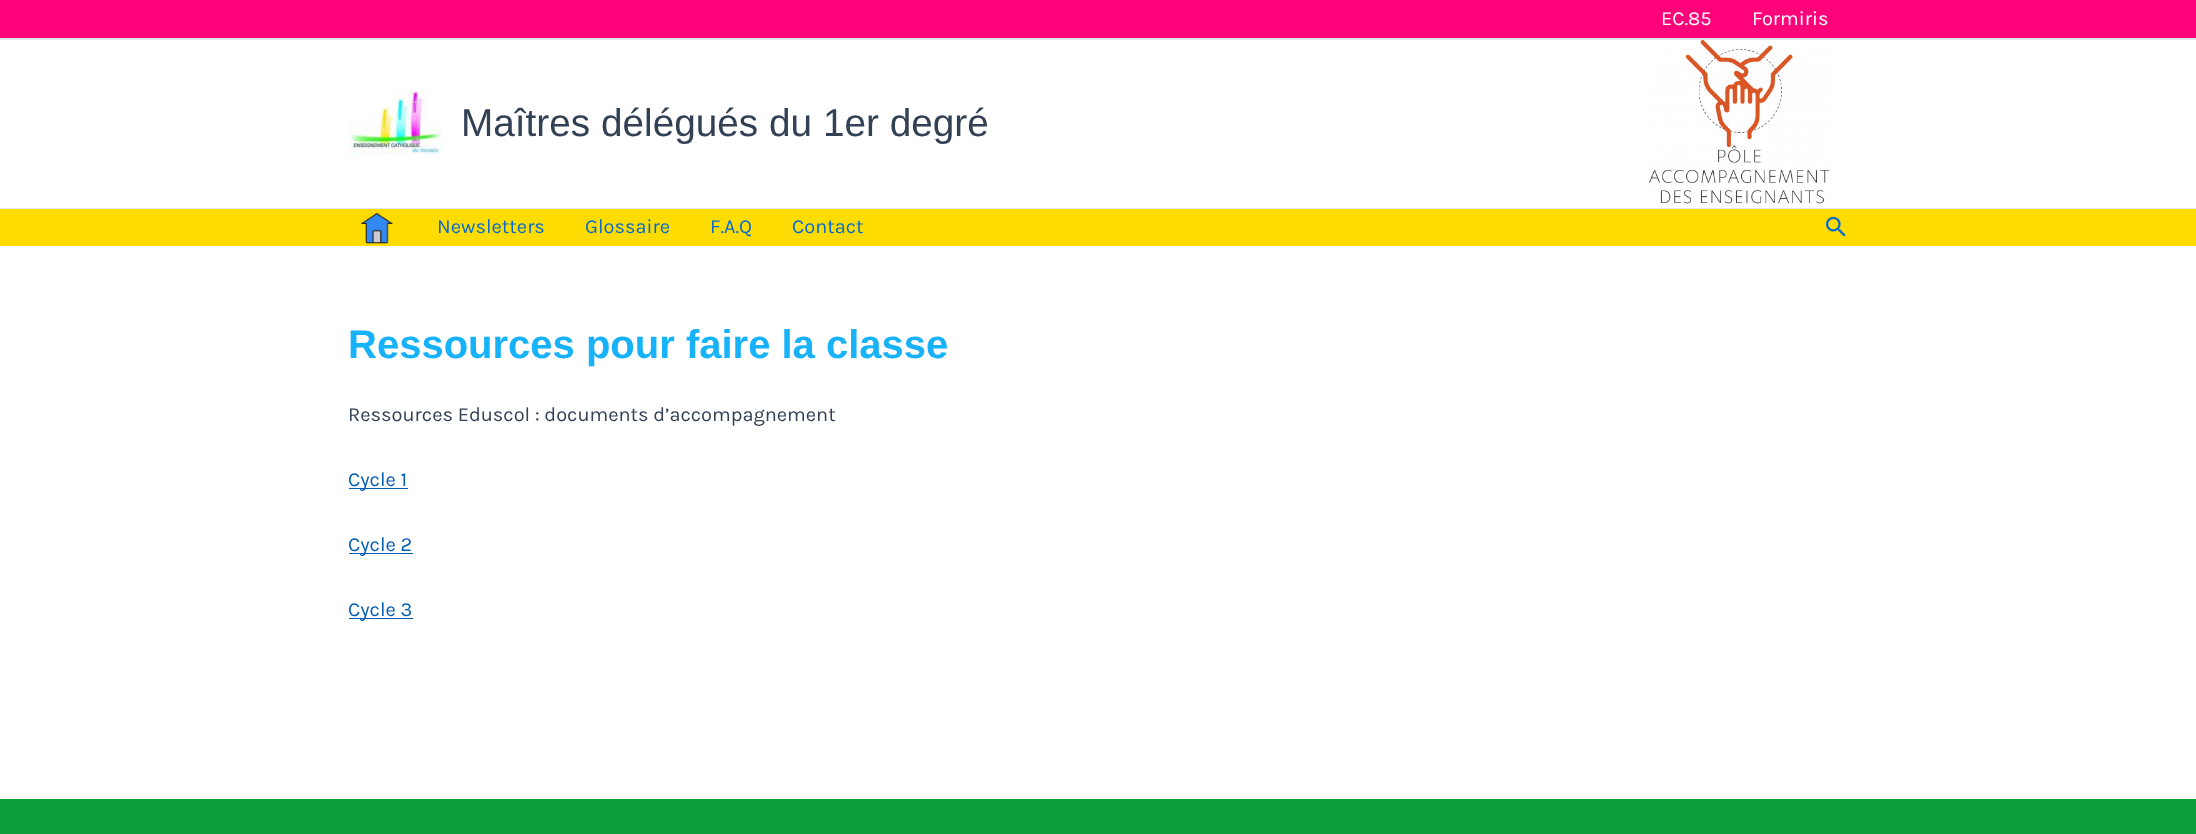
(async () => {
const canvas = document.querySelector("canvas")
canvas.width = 2196
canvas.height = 834
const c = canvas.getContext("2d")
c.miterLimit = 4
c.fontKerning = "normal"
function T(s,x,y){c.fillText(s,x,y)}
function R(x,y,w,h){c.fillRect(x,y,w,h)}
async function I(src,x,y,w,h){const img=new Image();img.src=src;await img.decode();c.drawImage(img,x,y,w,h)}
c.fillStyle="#fff"
R(0,0,2196,834)
c.fillStyle="#ff047a"
R(0,0,2196,38)
c.fillStyle="#e2e8f0"
R(0,38,2196,2)
c.font="20px Karla"
c.fillStyle="#fff"
T("EC.85",1661,25)
T("Formiris",1752,25)
c.fillStyle="#e2e8f0"
R(0,208,2196,1)
await I("1.png",348,91,94,64)
c.font="38.75px Liberation Sans"
c.fillStyle="#334155"
T("Maîtres délégués du 1er degré",461,136)
await I("2.png",1648,40,182,164)
c.fillStyle="#ffdc00"
R(0,209,2196,37)
await I("3.png",361,212,32,32)
c.font="20px Karla"
c.fillStyle="#046bd2"
T("Newsletters",437,233)
T("Glossaire",585,233)
T("F.A.Q",710,233)
T("Contact",792,233)
await I("4.png",1826,216,20,21)
c.font="bold 40px Liberation Sans"
c.fillStyle="#17b2fa"
T("Ressources pour faire la classe",348,358)
c.font="20px Karla"
c.fillStyle="#334155"
T("Ressources Eduscol : documents d’accompagnement",348,421)
c.fillStyle="#045cb4"
R(349,488,59,1)
T("Cycle 1",348,486)
R(349,553,64,1)
T("Cycle 2",348,551)
R(349,618,64,1)
T("Cycle 3",348,616)
c.fillStyle="#099d3c"
R(0,799,2196,35)
})()
